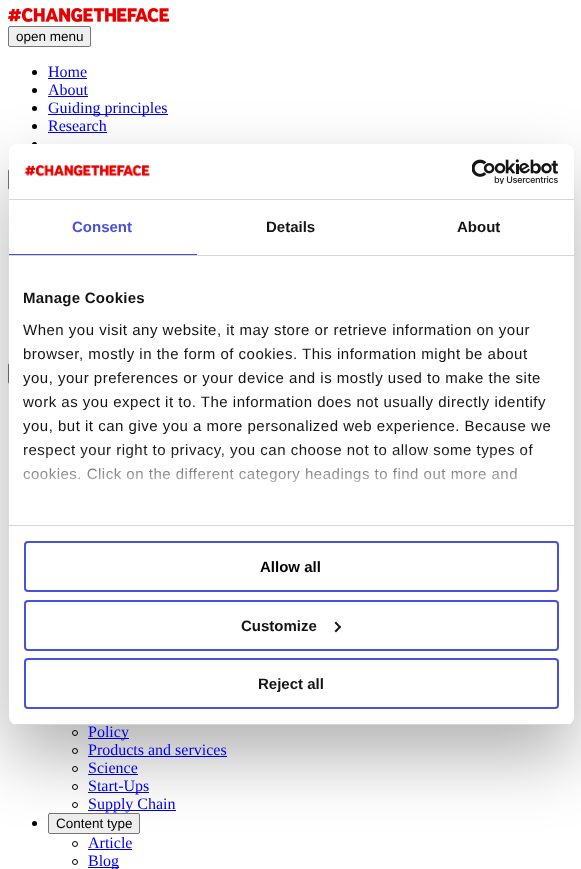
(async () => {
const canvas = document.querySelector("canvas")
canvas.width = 581
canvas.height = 869
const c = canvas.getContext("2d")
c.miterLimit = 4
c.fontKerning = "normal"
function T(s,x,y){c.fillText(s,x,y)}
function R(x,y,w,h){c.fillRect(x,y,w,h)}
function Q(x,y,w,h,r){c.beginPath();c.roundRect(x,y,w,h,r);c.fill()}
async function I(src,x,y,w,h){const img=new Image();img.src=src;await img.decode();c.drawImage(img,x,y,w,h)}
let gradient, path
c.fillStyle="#fff"
R(0,0,581,869)
await I("1.png",8,8,161,14)
c.fillStyle="#efefef"
c.beginPath()
c.roundRect(8.5,26.5,82,20,1.5)
c.fill()
c.strokeStyle="#767676"
c.stroke()
c.font="13.5px Liberation Sans"
c.fillStyle="#000"
T("open menu",16,41)
c.beginPath()
c.arc(34.5,72.5,2.5,0,7)
c.fill()
c.font="16px Liberation Serif"
c.fillStyle="#00e"
T("Home",48,77)
R(48,78,39,1)
c.fillStyle="#000"
c.beginPath()
c.arc(34.5,90.5,2.5,0,7)
c.fill()
c.fillStyle="#00e"
T("About",48,95)
R(48,96,40,1)
c.fillStyle="#000"
c.beginPath()
c.arc(34.5,108.5,2.5,0,7)
c.fill()
c.fillStyle="#00e"
R(48,114,120,1)
T("Guiding principles",48,113)
c.fillStyle="#000"
c.beginPath()
c.arc(34.5,126.5,2.5,0,7)
c.fill()
c.fillStyle="#00e"
T("Research",48,131)
R(48,132,59,1)
c.fillStyle="#000"
c.beginPath()
c.arc(34.5,144.5,2.5,0,7)
c.fill()
c.beginPath()
c.roundRect(8.5,169.5,83,20,1.5)
c.stroke()
c.beginPath()
c.roundRect(8.5,363.5,184,20,1.5)
c.stroke()
c.beginPath()
c.arc(75,733,2.5,0,7)
c.strokeStyle="#000"
c.stroke()
c.fillStyle="#00e"
R(88,738,41,1)
c.beginPath()
c.arc(75,751,2.5,0,7)
c.stroke()
R(88,756,139,1)
c.beginPath()
c.arc(75,769,2.5,0,7)
c.stroke()
R(88,774,50,1)
c.beginPath()
c.arc(75,787,2.5,0,7)
c.stroke()
R(88,792,61,1)
c.beginPath()
c.arc(75,805,2.5,0,7)
c.stroke()
R(88,810,88,1)
c.fillStyle="#000"
c.beginPath()
c.arc(34.5,823.5,2.5,0,7)
c.fill()
c.fillStyle="#efefef"
c.beginPath()
c.roundRect(48.5,813.5,91,20,1.5)
c.fill()
c.strokeStyle="#767676"
c.stroke()
c.beginPath()
c.arc(75,844,2.5,0,7)
c.strokeStyle="#000"
c.stroke()
c.fillStyle="#00e"
R(88,849,44,1)
c.beginPath()
c.arc(75,862,2.5,0,7)
c.stroke()
c.fillStyle="#0000004d"
c.filter="blur(34px)"
c.beginPath()
c.roundRect(9,176,565,581,8)
c.fill()
c.filter="none"
c.fillStyle="#fff"
Q(9,144,565,581,8)
c.fillStyle="#d6d6d6"
R(9,199,565,1)
await I("2.png",24,165,126,12)
await I("3.png",472,159,86,25)
R(9,255,565,1)
c.fillStyle="#4751dd"
R(9,254,188,1)
c.font="bold 15px Liberation Sans"
T("Consent",72,232)
c.fillStyle="#141414"
T("Details",266,232)
T("About",457,232)
c.fillStyle="#d6d6d6"
R(9,525,565,1)
c.letterSpacing="0.25px"
c.fillStyle="#141414"
T("Manage Cookies",23,303)
c.letterSpacing="0.5px"
c.font="15px Liberation Sans"
T("When you visit any website, it may store or retrieve information on your",23,335)
T("browser, mostly in the form of cookies. This information might be about",23,359)
T("you, your preferences or your device and is mostly used to make the site",23,383)
T("work as you expect it to. The information does not usually directly identify",23,407)
T("you, but it can give you a more personalized web experience. Because we",23,431)
T("respect your right to privacy, you can choose not to allow some types of",23,455)
T("cookies. Click on the different category headings to find out more and",23,479)
gradient = c.createLinearGradient(285,525,285,450)
gradient.addColorStop(0,"#fff")
gradient.addColorStop(.5,"#ffffffcc")
gradient.addColorStop(1,"#ffffff00")
c.fillStyle = gradient
R(23,451,508,32)
c.save()
c.beginPath()
c.roundRect(9,144,565,581,8)
c.clip()
c.fillStyle="#d6d6d6"
R(9,724,565,1)
c.restore()
c.beginPath()
c.roundRect(25,542,533,49,3)
c.strokeStyle="#4751dd"
c.lineWidth=2
c.stroke()
c.letterSpacing="0px"
c.font="bold 15px Liberation Sans"
c.fillStyle="#000"
T("Allow all",260,572)
c.beginPath()
c.roundRect(25,601,533,49,3)
c.stroke()
c.fillStyle="#141414"
T("Customize",241,631)
path = new Path2D("M336 621.5l5 5.5l-1 1.5l-5.5-5.5z")
c.fill(path)
path = new Path2D("M340 625.5l1 1.5l-5 5.5l-1.5-1.5z")
c.fill(path)
c.beginPath()
c.roundRect(25,659,533,49,3)
c.stroke()
T("Reject all",258,689)
c.font="16px Liberation Serif"
c.fillStyle="#00e"
T("Policy",88,737)
T("Products and services",88,755)
T("Science",88,773)
T("Start-Ups",88,791)
T("Supply Chain",88,809)
c.font="13.5px Liberation Sans"
c.fillStyle="#000"
T("Content type",56,828)
c.font="16px Liberation Serif"
c.fillStyle="#00e"
T("Article",88,848)
R(88,867,31,1)
T("Blog",88,866)
})()
